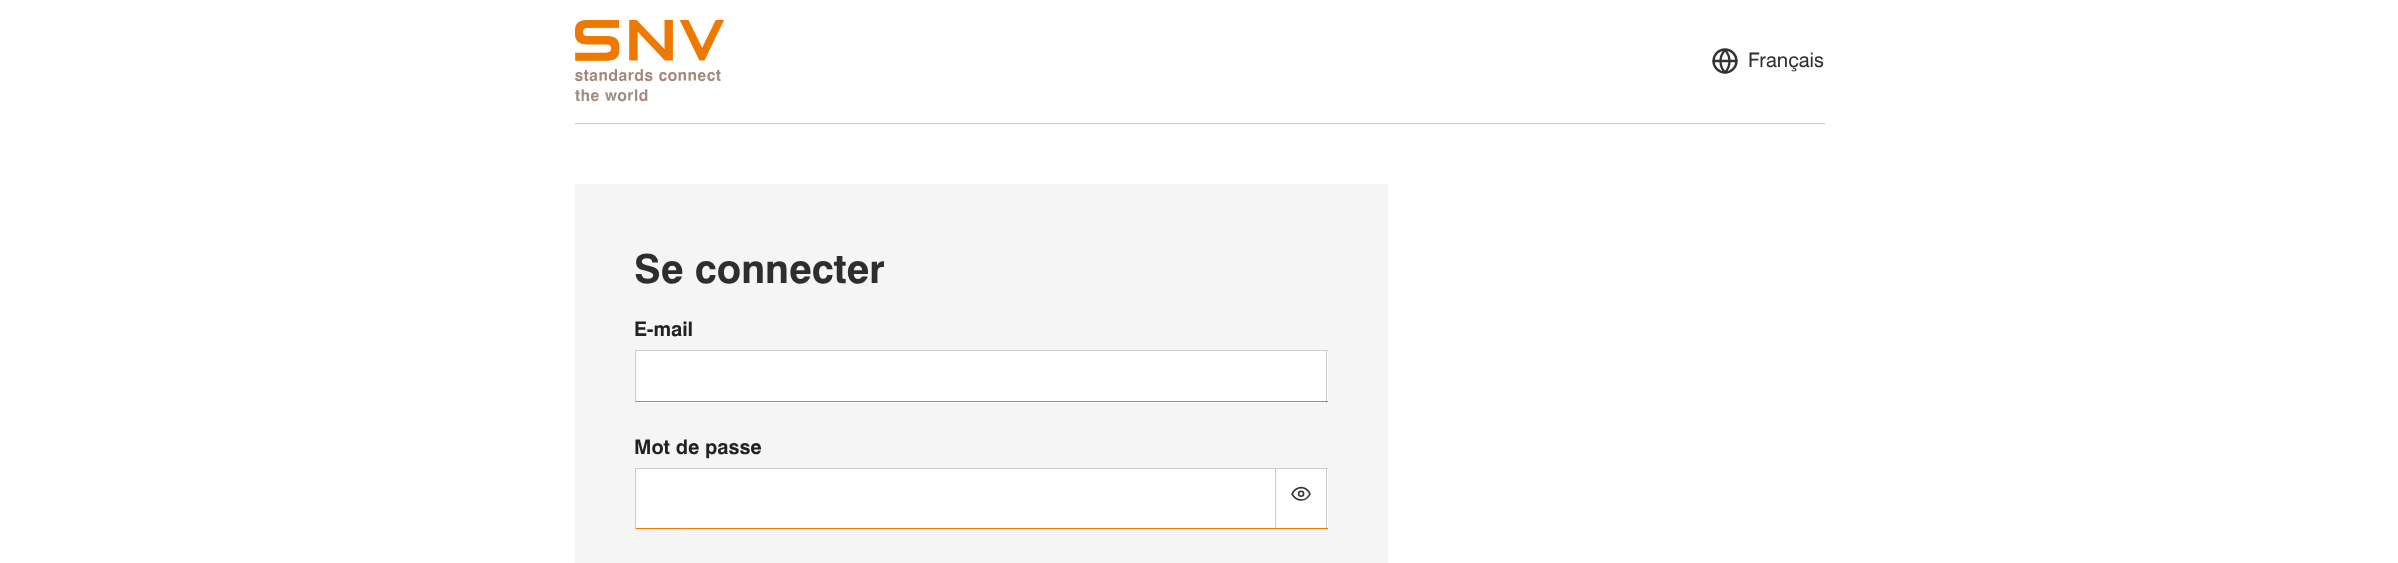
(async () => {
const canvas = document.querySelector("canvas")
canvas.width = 2398
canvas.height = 563
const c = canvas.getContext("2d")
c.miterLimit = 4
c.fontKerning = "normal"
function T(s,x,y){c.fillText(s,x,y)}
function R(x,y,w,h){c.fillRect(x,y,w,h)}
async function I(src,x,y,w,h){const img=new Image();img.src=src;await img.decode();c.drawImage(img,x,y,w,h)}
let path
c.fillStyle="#fff"
R(0,0,2398,563)
c.fillStyle="#ccc"
R(575,123,1250,1)
await I("1.png",575,20,149,82)
c.beginPath()
c.arc(1725,61,11.5,0,7)
c.strokeStyle="#333"
c.lineWidth=2.3
c.stroke()
path = new Path2D("M1713.5 61h23m-11.5-11c6 6.5 6 16 0 22.5c-6-6.5-6-16 0-22.5z")
c.lineCap="round"
c.lineJoin="round"
c.stroke(path)
c.font="20px 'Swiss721'"
c.fillStyle="#2e2e2e"
T("Français",1748,67)
c.fillStyle="#f5f5f5"
R(575,184,813,379)
c.font="bold 40px 'Swiss721'"
c.fillStyle="#2e2e2e"
T("Se connecter",634,283)
c.font="bold 20px 'Swiss721'"
c.fillStyle="#222"
T("E-mail",634,336)
c.fillStyle="#fff"
R(636,351,692,52)
c.fillStyle="#ccc"
R(635,350,693,1)
R(1326,350,1,53)
c.fillStyle="#ee7900"
R(635,401,693,1)
c.fillStyle="#ccc"
R(635,350,1,53)
c.fillStyle="#222"
T("Mot de passe",634,454)
c.fillStyle="#fff"
R(636,469,639,59)
c.fillStyle="#ccc"
R(635,468,693,1)
R(1275,468,1,61)
c.fillStyle="#ee7900"
R(635,528,641,1)
c.fillStyle="#ccc"
R(635,468,1,61)
c.fillStyle="#fff"
R(1276,469,52,59)
c.fillStyle="#ccc"
R(1326,468,1,61)
c.fillStyle="#ee7900"
R(1276,528,52,1)
path = new Path2D("M1292 494c4.5-8.5 14-8.5 18 0c-4 8-13.5 8-18 0z")
c.lineWidth=1.6
c.stroke(path)
c.beginPath()
c.arc(1301.1,493.8,2.5,0,7)
c.stroke()
c.save()
c.beginPath()
c.rect(630,521,60,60)
c.clip()
path = new Path2D("M688 531l-31.5 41.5l-22-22")
c.strokeStyle="#f5f5f5"
c.lineWidth=8.1
c.lineCap="butt"
c.lineJoin="miter"
c.stroke(path)
c.restore()
})()
